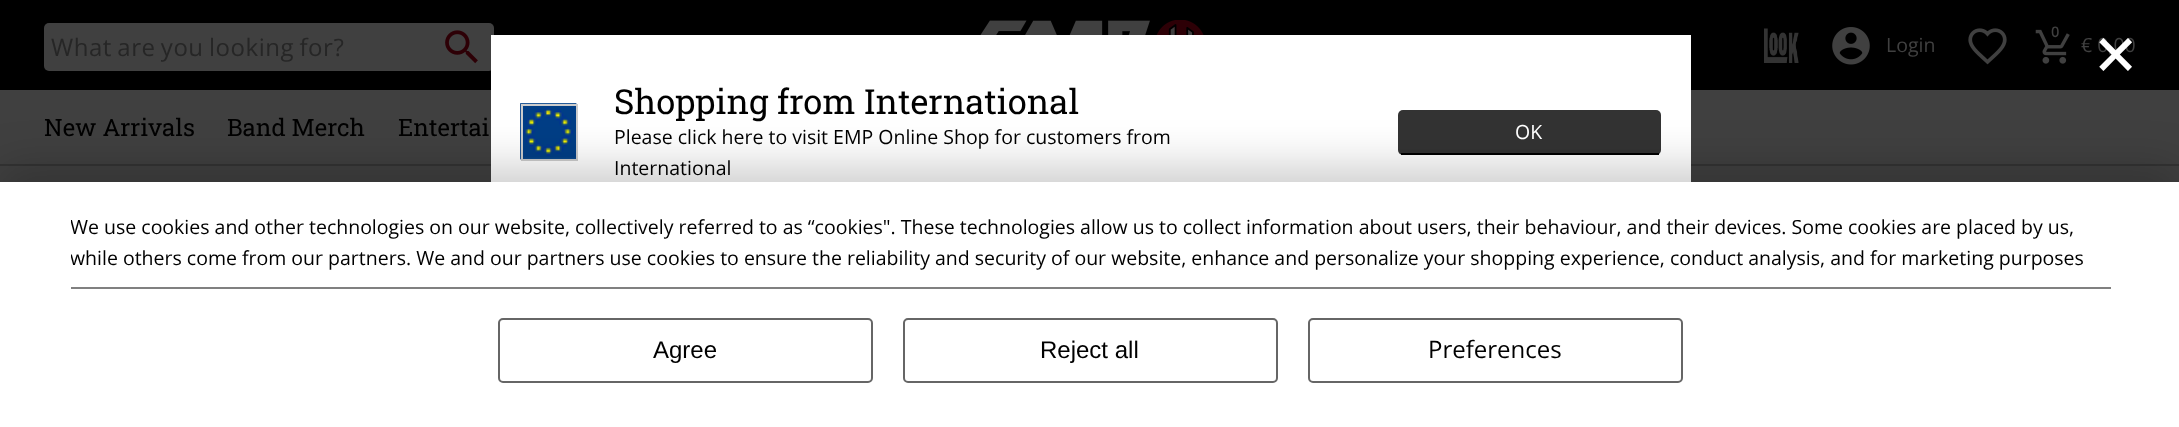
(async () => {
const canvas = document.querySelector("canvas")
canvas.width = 2179
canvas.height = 427
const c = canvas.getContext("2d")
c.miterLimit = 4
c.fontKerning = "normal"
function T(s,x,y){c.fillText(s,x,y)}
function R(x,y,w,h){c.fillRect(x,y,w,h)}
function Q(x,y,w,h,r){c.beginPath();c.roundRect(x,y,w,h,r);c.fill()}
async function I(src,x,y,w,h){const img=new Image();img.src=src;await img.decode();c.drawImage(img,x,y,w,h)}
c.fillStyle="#404040"
R(0,0,2179,427)
c.fillStyle="#000"
R(0,0,2179,90)
c.fillStyle="#404040"
Q(44,23,450,48,5)
c.letterSpacing="0.55px"
c.wordSpacing="-1.5px"
c.font="24px Open Sans"
c.fillStyle="#262626"
T("What are you looking for?",51,56)
await I("1.png",445,30,33,34)
await I("2.png",980,20,224,15)
await I("3.png",1764,28,35,35)
await I("4.png",1832,27,38,38)
c.letterSpacing="0px"
c.wordSpacing="0px"
c.font="19.5px Open Sans"
c.fillStyle="#404040"
T("Login",1886,52)
await I("5.png",1968,28,39,37)
await I("6.png",2035,29,35,35)
c.font="bold 14px Open Sans"
T("0",2051,37)
c.font="19.5px Open Sans"
T("€ 0,00",2081,52)
c.fillStyle="#333"
R(0,164,2179,2)
c.font="24px Roboto Slab"
c.fillStyle="#000"
T("New Arrivals",44,136)
T("Band Merch",227,136)
T("Entertai",398,136)
c.fillStyle="#fff"
R(491,35,1200,147)
await I("7.png",520,103,57,57)
c.strokeStyle="#ccc"
c.lineWidth=2
c.strokeRect(522,105,55,55)
c.fillStyle="#333"
Q(1398,110,263,45,5)
c.fillStyle="#000"
R(1401,153,258,2)
c.fillStyle="#00000033"
c.filter="blur(22.5px)"
c.beginPath()
c.rect(0,167,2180,246)
c.fill()
c.filter="none"
c.fillStyle="#fff"
R(0,182,2179,245)
c.fillStyle="#808080"
R(71,287,2040,2)
c.save()
c.beginPath()
c.rect(71,212,2040,75)
c.clip()
c.font="19.5px Open Sans"
c.fillStyle="#000"
T("We use cookies and other technologies on our website, collectively referred to as “cookies\". These technologies allow us to collect information about users, their behaviour, and their devices. Some cookies are placed by us,",70,234)
T("while others come from our partners. We and our partners use cookies to ensure the reliability and security of our website, enhance and personalize your shopping experience, conduct analysis, and for marketing purposes",70,265)
c.restore()
c.beginPath()
c.roundRect(499,319,373,63,4)
c.strokeStyle="#666"
c.stroke()
c.font="24px Liberation Sans"
c.fillStyle="#000"
T("Agree",653,358)
c.beginPath()
c.roundRect(904,319,373,63,4)
c.stroke()
T("Reject all",1040,358)
c.beginPath()
c.roundRect(1309,319,373,63,4)
c.stroke()
c.font="24px Open Sans"
T("Preferences",1428,358)
c.font="72px DejaVu Sans Mono"
c.fillStyle="#fff"
T("×",2094,77)
c.font="34.5px Roboto Slab"
c.fillStyle="#000"
T("Shopping from International",614,114)
c.font="19.5px Open Sans"
T("Please click here to visit EMP Online Shop for customers from",614,144)
T("International",614,175)
c.fillStyle="#fff"
T("OK",1515,139)
})()
